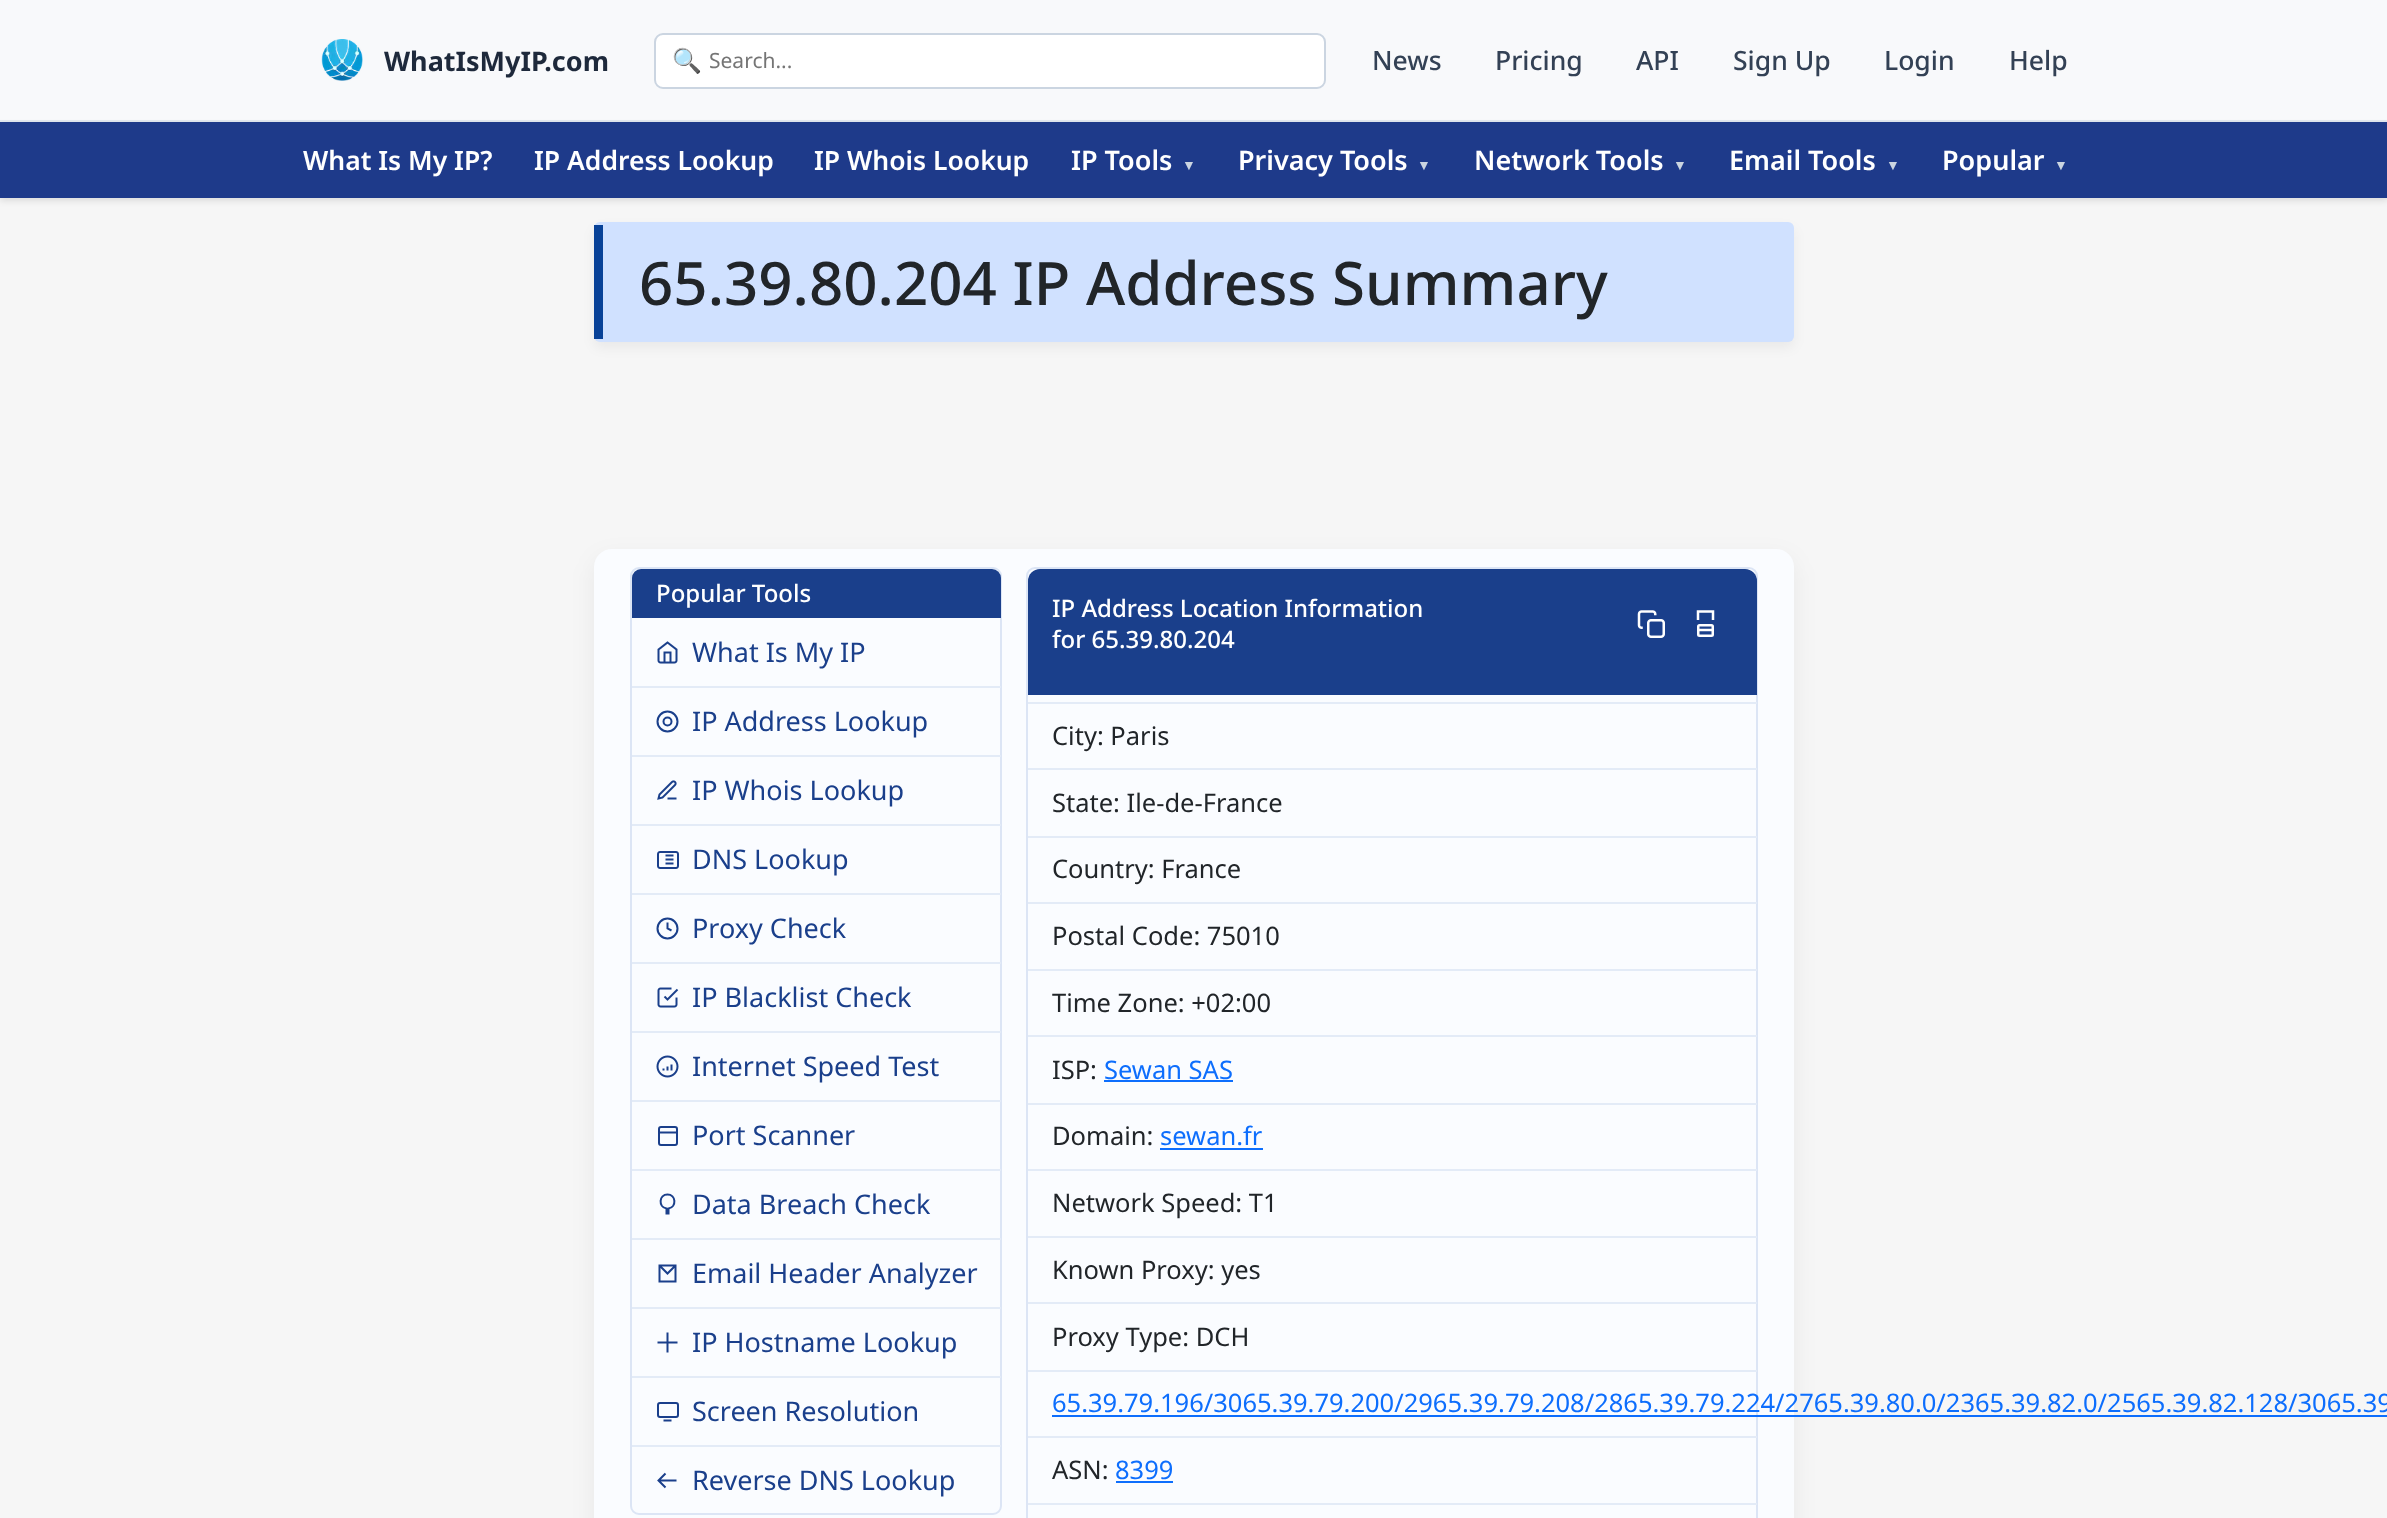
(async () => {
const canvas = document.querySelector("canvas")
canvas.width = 2387
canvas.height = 1518
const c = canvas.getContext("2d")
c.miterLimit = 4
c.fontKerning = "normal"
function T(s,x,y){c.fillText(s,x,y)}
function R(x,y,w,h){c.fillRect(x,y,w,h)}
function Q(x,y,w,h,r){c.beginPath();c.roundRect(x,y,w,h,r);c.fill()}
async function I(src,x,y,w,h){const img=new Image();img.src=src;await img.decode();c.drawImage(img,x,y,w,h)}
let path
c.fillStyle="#f6f6f6"
R(0,0,2387,1518)
c.fillStyle="#f8f9fb"
R(0,0,2387,120)
c.fillStyle="#e2e8f0"
R(0,120,2387,2)
await I("1.png",321,39,42,42)
c.font="bold 27px Noto Sans"
c.fillStyle="#1e293b"
T("WhatIsMyIP.com",384,71)
c.fillStyle="#fff"
c.beginPath()
c.roundRect(655,34,670,54,8)
c.fill()
c.strokeStyle="#cbd5e1"
c.lineWidth=2
c.stroke()
c.font="24px Noto Color Emoji"
c.fillStyle="#64748b"
T("🔍",672,69)
c.font="21px Noto Sans"
c.fillStyle="#757575"
T("Search...",709,68)
c.font="500 26.5px Noto Sans"
c.fillStyle="#334155"
T("News",1372,70)
T("Pricing",1495,70)
T("API",1636,70)
T("Sign Up",1733,70)
T("Login",1884,70)
T("Help",2009,70)
c.fillStyle="#0000001a"
c.filter="blur(3px)"
c.beginPath()
c.rect(0,125,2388,76)
c.fill()
c.filter="none"
c.fillStyle="#1e3a8a"
R(0,122,2387,76)
c.font="600 26.5px Noto Sans"
c.fillStyle="#fff"
T("What Is My IP?",303,170)
T("IP Address Lookup",534,170)
T("IP Whois Lookup",814,170)
c.font="600 27px Noto Sans"
T("IP Tools",1071,170)
c.font="bold 14px Liberation Sans"
c.fillStyle="#cbd5e1"
T("▼",1182,170)
c.font="600 27px Noto Sans"
c.fillStyle="#fff"
T("Privacy Tools",1238,170)
c.font="bold 14px Liberation Sans"
c.fillStyle="#cbd5e1"
T("▼",1417,170)
c.font="600 27px Noto Sans"
c.fillStyle="#fff"
T("Network Tools",1474,170)
c.font="bold 14px Liberation Sans"
c.fillStyle="#cbd5e1"
T("▼",1673,170)
c.font="600 27px Noto Sans"
c.fillStyle="#fff"
T("Email Tools",1729,170)
c.font="bold 14px Liberation Sans"
c.fillStyle="#cbd5e1"
T("▼",1886,170)
c.font="600 27px Noto Sans"
c.fillStyle="#fff"
T("Popular",1942,170)
c.font="bold 14px Liberation Sans"
c.fillStyle="#cbd5e1"
T("▼",2054,170)
c.fillStyle="#0000000d"
c.filter="blur(6px)"
c.beginPath()
c.roundRect(594,228,1200,120,6)
c.fill()
c.filter="none"
c.fillStyle="#d0e1ff"
Q(594,222,1200,120,6)
c.fillStyle="#084298"
R(594,225,9,114)
c.font="500 60px Noto Sans"
c.fillStyle="#212529"
T("65.39.80.204 IP Address Summary",639,305)
c.fillStyle="#0000000f"
c.filter="blur(12px)"
c.beginPath()
c.roundRect(594,558,1200,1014,18)
c.fill()
c.filter="none"
c.fillStyle="#fafcff"
Q(594,549,1200,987,18)
c.beginPath()
c.roundRect(631,568,370,946,8)
c.strokeStyle="#dce5f5"
c.stroke()
c.fillStyle="#1a3f8b"
c.beginPath()
c.roundRect(632,569,369,49,[9,9,0,0])
c.fill()
c.font="500 24px Noto Sans"
c.fillStyle="#fff"
T("Popular Tools",656,602)
await I("2.png",657,641,21,23)
c.font="27px Noto Sans"
c.fillStyle="#1a3f8b"
T("What Is My IP",692,662)
c.fillStyle="#e3ebf7"
R(632,686,369,2)
c.beginPath()
c.arc(667.5,721.5,10,0,7)
c.strokeStyle="#1a3f8b"
c.stroke()
c.beginPath()
c.arc(667.5,721.5,4,0,7)
c.stroke()
c.fillStyle="#1a3f8b"
T("IP Address Lookup",692,731)
c.fillStyle="#e3ebf7"
R(632,755,369,2)
await I("3.png",657,780,20,20)
c.fillStyle="#1a3f8b"
T("IP Whois Lookup",692,800)
c.fillStyle="#e3ebf7"
R(632,824,369,2)
await I("4.png",657,851,22,18)
c.fillStyle="#1a3f8b"
T("DNS Lookup",692,869)
c.fillStyle="#e3ebf7"
R(632,893,369,2)
c.beginPath()
c.arc(667.5,928.5,10,0,7)
c.stroke()
path = new Path2D("M667.5 922.5v6l4 2")
c.stroke(path)
c.fillStyle="#1a3f8b"
T("Proxy Check",692,938)
c.fillStyle="#e3ebf7"
R(632,962,369,2)
await I("5.png",657,987,22,21)
c.fillStyle="#1a3f8b"
T("IP Blacklist Check",692,1007)
c.fillStyle="#e3ebf7"
R(632,1031,369,2)
await I("6.png",656,1055,23,23)
c.fillStyle="#1a3f8b"
T("Internet Speed Test",692,1076)
c.fillStyle="#e3ebf7"
R(632,1100,369,2)
c.beginPath()
c.roundRect(659,1127,18,18,2)
c.stroke()
path = new Path2D("M658.5 1132.5h18")
c.stroke(path)
c.fillStyle="#1a3f8b"
T("Port Scanner",692,1145)
c.fillStyle="#e3ebf7"
R(632,1169,369,2)
path = new Path2D("M667.5 1194.5c-8.5 0-9.5 12.5-1 14v5h2v-5c8.5-1.5 7.5-14-1-14z")
c.stroke(path)
c.fillStyle="#1a3f8b"
T("Data Breach Check",692,1214)
c.fillStyle="#e3ebf7"
R(632,1238,369,2)
path = new Path2D("M659.5 1265.5h16v16h-16zm0 0l8 8l8-8")
c.stroke(path)
c.fillStyle="#1a3f8b"
T("Email Header Analyzer",692,1283)
c.fillStyle="#e3ebf7"
R(632,1307,369,2)
path = new Path2D("M657.5 1342.5h20m-10-10v20")
c.stroke(path)
c.fillStyle="#1a3f8b"
T("IP Hostname Lookup",692,1352)
c.fillStyle="#e3ebf7"
R(632,1376,369,2)
c.beginPath()
c.roundRect(658,1403,20,14,2)
c.stroke()
path = new Path2D("M663.5 1420.5h8")
c.stroke(path)
c.fillStyle="#1a3f8b"
T("Screen Resolution",692,1421)
c.fillStyle="#e3ebf7"
R(632,1445,369,2)
path = new Path2D("M665.5 1487.5l-7-7l7-7m-7 7h18")
c.stroke(path)
c.fillStyle="#1a3f8b"
T("Reverse DNS Lookup",692,1490)
c.beginPath()
c.roundRect(1027,568,730,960,8)
c.strokeStyle="#dce5f5"
c.stroke()
c.beginPath()
c.roundRect(1028,569,729,126,[12,12,0,0])
c.fill()
c.font="500 24px Noto Sans"
c.fillStyle="#fff"
T("IP Address Location Information",1052,617)
T("for 65.39.80.204",1052,648)
await I("7.png",1637,610,28,28)
path = new Path2D("M1698 620v-8.5h15v8.5")
c.strokeStyle="#fff"
c.lineWidth=2.5
c.stroke(path)
c.beginPath()
c.roundRect(1698.25,625.25,14.5,10.5,1.25)
c.stroke()
path = new Path2D("M1698 630h15")
c.stroke(path)
c.fillStyle="#e3ebf7"
R(1028,702,729,2)
c.font="25.5px Noto Sans"
c.fillStyle="#212529"
T("City: Paris",1052,745)
c.fillStyle="#e3ebf7"
R(1028,768,729,2)
c.fillStyle="#212529"
T("State: Ile-de-France",1052,812)
c.fillStyle="#e3ebf7"
R(1028,836,729,2)
c.fillStyle="#212529"
T("Country: France",1052,878)
c.fillStyle="#e3ebf7"
R(1028,902,729,2)
c.fillStyle="#212529"
T("Postal Code: 75010",1052,945)
c.fillStyle="#e3ebf7"
R(1028,969,729,2)
c.fillStyle="#212529"
T("Time Zone: +02:00",1052,1012)
c.fillStyle="#e3ebf7"
R(1028,1035,729,2)
c.fillStyle="#212529"
T("ISP:",1052,1079)
c.fillStyle="#0d6efd"
T("Sewan SAS",1104,1079)
R(1104,1080,129,2)
c.fillStyle="#e3ebf7"
R(1028,1103,729,2)
c.fillStyle="#212529"
T("Domain:",1052,1145)
c.fillStyle="#0d6efd"
T("sewan.fr",1160,1145)
R(1160,1148,103,2)
c.fillStyle="#e3ebf7"
R(1028,1169,729,2)
c.fillStyle="#212529"
T("Network Speed: T1",1052,1212)
c.fillStyle="#e3ebf7"
R(1028,1236,729,2)
c.fillStyle="#212529"
T("Known Proxy: yes",1052,1279)
c.fillStyle="#e3ebf7"
R(1028,1302,729,2)
c.fillStyle="#212529"
T("Proxy Type: DCH",1052,1346)
c.fillStyle="#e3ebf7"
R(1028,1370,729,2)
c.fillStyle="#0d6efd"
T("65.39.79.196/3065.39.79.200/2965.39.79.208/2865.39.79.224/2765.39.80.0/2365.39.82.0/2565.39.82.128/3065.39",1052,1412)
R(1052,1415,1335,2)
c.fillStyle="#e3ebf7"
R(1028,1436,729,2)
c.fillStyle="#212529"
T("ASN:",1052,1479)
c.fillStyle="#0d6efd"
T("8399",1115,1479)
R(1116,1481,57,2)
c.fillStyle="#e3ebf7"
R(1028,1503,729,2)
})()
